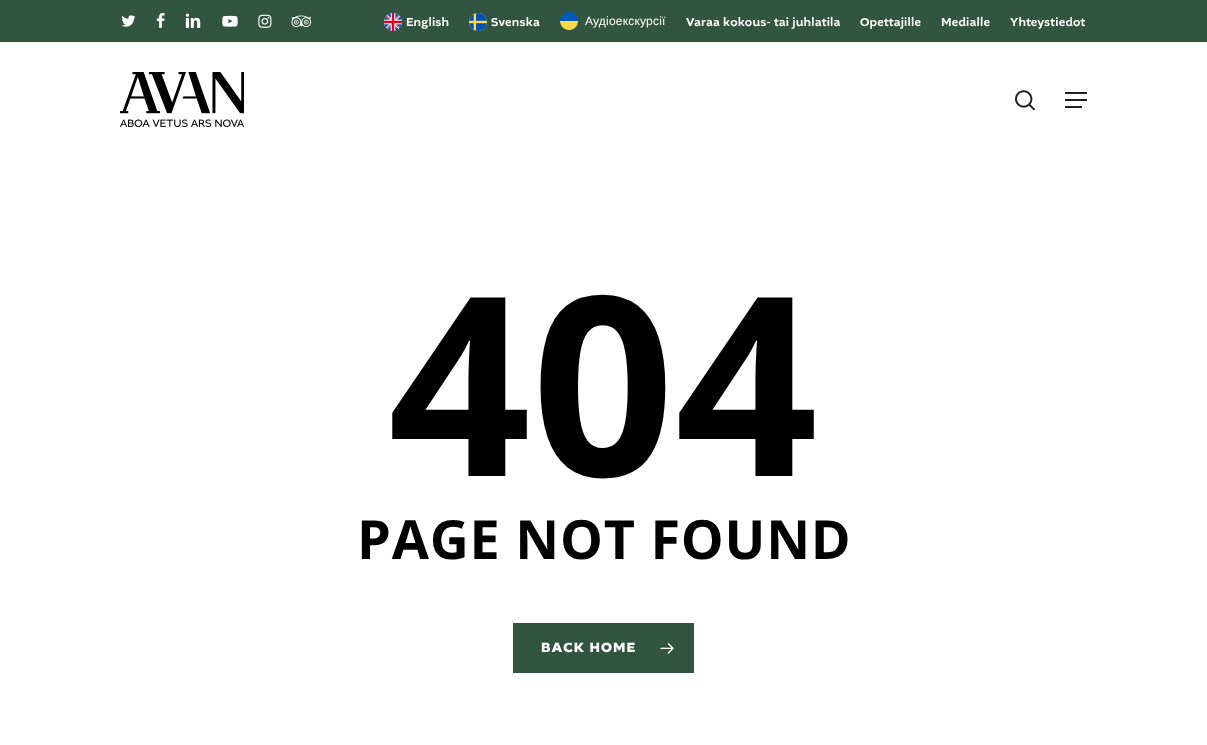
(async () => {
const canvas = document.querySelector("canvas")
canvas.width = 1207
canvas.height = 745
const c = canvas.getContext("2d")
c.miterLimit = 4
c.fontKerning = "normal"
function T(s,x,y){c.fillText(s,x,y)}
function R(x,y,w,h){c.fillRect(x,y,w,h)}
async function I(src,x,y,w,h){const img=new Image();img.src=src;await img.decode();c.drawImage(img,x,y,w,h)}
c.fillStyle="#fff"
R(0,0,1207,745)
c.fillStyle="#315541"
R(0,0,1207,42)
await I("1.png",121,15,15,12)
await I("2.png",156,13,9,15)
await I("3.png",185,13,16,15)
await I("4.png",222,15,16,12)
await I("5.png",258,14,14,14)
await I("6.png",291,15,21,13)
await I("7.png",384,13,18,18)
c.letterSpacing="0.2px"
c.font="500 12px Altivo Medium"
c.fillStyle="#fff"
T("English",406,26)
await I("8.png",469,13,18,18)
T("Svenska",491,26)
await I("9.png",559,12,19,18)
c.font="12px Liberation Sans"
T("Аудіоекскурсії",585,25)
c.font="500 12px Altivo Medium"
T("Varaa kokous- tai juhlatila",686,26)
T("Opettajille",860,26)
T("Medialle",941,26)
T("Yhteystiedot",1010,26)
await I("10.png",120,72,124,55)
await I("11.png",1015,90,20,21)
c.fillStyle="#212121"
R(1065,92,22,2)
R(1065,106,17,2)
R(1065,99,22,2)
c.letterSpacing="0.5px"
c.font="bold 250px Open Sans"
c.fillStyle="#000"
T("404",388,476)
c.letterSpacing="0.75px"
c.font="bold 54px Open Sans"
T("PAGE NOT FOUND",357,559)
c.fillStyle="#315541"
R(513,623,181,50)
c.letterSpacing="1px"
c.font="bold 14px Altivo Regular"
c.fillStyle="#fff"
T("BACK HOME",541,652)
await I("12.png",660,643,14,11)
})()
